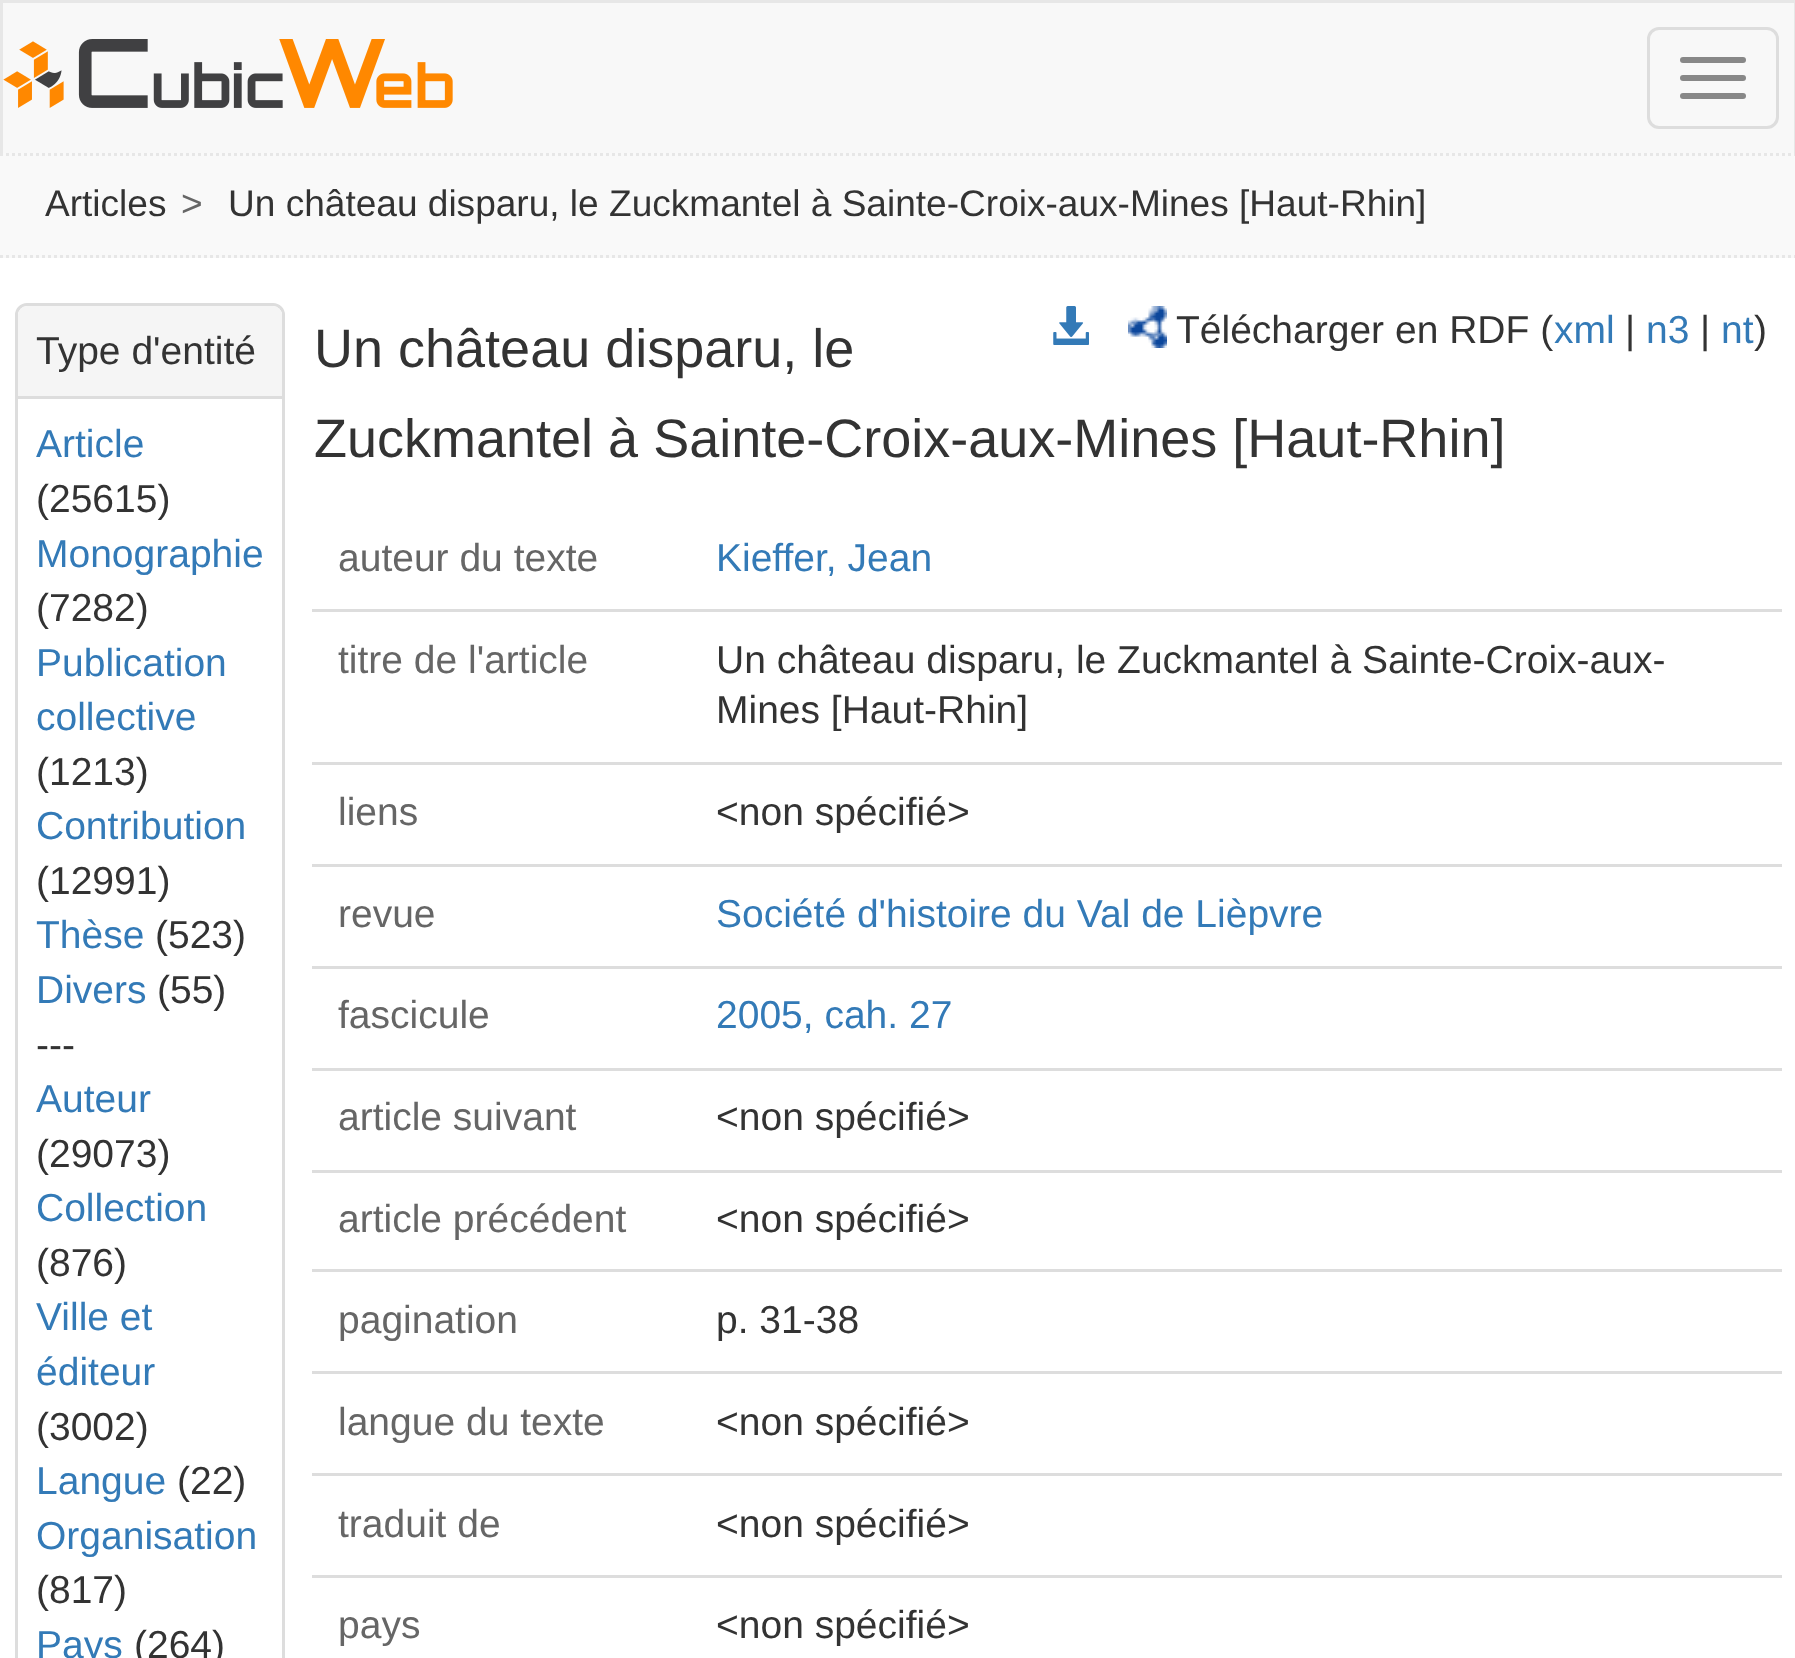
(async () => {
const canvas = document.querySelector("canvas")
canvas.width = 1795
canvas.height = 1658
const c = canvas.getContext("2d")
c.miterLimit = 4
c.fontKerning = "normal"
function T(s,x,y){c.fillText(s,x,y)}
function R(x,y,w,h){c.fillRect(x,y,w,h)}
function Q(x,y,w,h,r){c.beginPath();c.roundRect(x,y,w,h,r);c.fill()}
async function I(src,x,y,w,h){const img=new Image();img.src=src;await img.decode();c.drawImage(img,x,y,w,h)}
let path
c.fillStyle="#fff"
R(0,0,1795,1658)
c.fillStyle="#f8f8f8"
R(3,3,1791,150)
c.fillStyle="#e7e7e7"
R(0,0,1795,3)
R(1794,0,1,153)
R(0,0,3,153)
await I("1.png",3,39,450,69)
c.beginPath()
c.roundRect(1648.5,28.5,129,99,10.5)
c.strokeStyle="#ddd"
c.lineWidth=3
c.stroke()
c.fillStyle="#888"
Q(1680,57,66,6,3)
Q(1680,75,66,6,3)
Q(1680,93,66,6,3)
c.fillStyle="#f9f9f9"
R(0,153,1795,105)
path = new Path2D("M0 154.5h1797")
c.strokeStyle="#e7e7e7"
c.setLineDash([3,3])
c.stroke(path)
path = new Path2D("M0 256.5h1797")
c.stroke(path)
c.font="37.05px Liberation Sans"
c.fillStyle="#333"
T("Articles",45,216)
c.fillStyle="#666"
T(">",181,216)
c.fillStyle="#333"
T("Un château disparu, le Zuckmantel à Sainte-Croix-aux-Mines [Haut-Rhin]",228,216)
c.beginPath()
c.roundRect(16.5,304.5,267,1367,10.5)
c.strokeStyle="#ddd"
c.setLineDash([])
c.stroke()
c.fillStyle="#f5f5f5"
c.beginPath()
c.roundRect(18,306,264,93,[9,9,0,0])
c.fill()
c.fillStyle="#ddd"
R(18,396,264,3)
c.font="39px Liberation Sans"
c.fillStyle="#333"
T("Type d'entité",36,364)
c.fillStyle="#337ab7"
T("Article",36,457)
c.fillStyle="#333"
T("(25615)",36,512)
c.fillStyle="#337ab7"
T("Monographie",36,567)
c.fillStyle="#333"
T("(7282)",36,621)
c.fillStyle="#337ab7"
T("Publication",36,676)
T("collective",36,730)
c.fillStyle="#333"
T("(1213)",36,785)
c.fillStyle="#337ab7"
T("Contribution",36,839)
c.fillStyle="#333"
T("(12991)",36,894)
c.fillStyle="#337ab7"
T("Thèse",36,948)
c.fillStyle="#333"
T("(523)",155,948)
c.fillStyle="#337ab7"
T("Divers",36,1003)
c.fillStyle="#333"
T("(55)",157,1003)
T("---",36,1058)
c.fillStyle="#337ab7"
T("Auteur",36,1112)
c.fillStyle="#333"
T("(29073)",36,1167)
c.fillStyle="#337ab7"
T("Collection",36,1221)
c.fillStyle="#333"
T("(876)",36,1276)
c.fillStyle="#337ab7"
T("Ville et",36,1330)
T("éditeur",36,1385)
c.fillStyle="#333"
T("(3002)",36,1440)
c.fillStyle="#337ab7"
T("Langue",36,1494)
c.fillStyle="#333"
T("(22)",177,1494)
c.fillStyle="#337ab7"
T("Organisation",36,1549)
c.fillStyle="#333"
T("(817)",36,1603)
c.fillStyle="#337ab7"
T("Pays",36,1658)
c.fillStyle="#333"
T("(264)",134,1658)
await I("2.png",1053,306,36,39)
await I("3.png",1128,306,39,42)
T("Télécharger en RDF (",1176,343)
c.fillStyle="#337ab7"
T("xml",1554,343)
c.fillStyle="#333"
T("|",1625,343)
c.fillStyle="#337ab7"
T("n3",1646,343)
c.fillStyle="#333"
T("|",1700,343)
c.fillStyle="#337ab7"
T("nt",1721,343)
c.fillStyle="#333"
T(")",1754,343)
c.font="54px Liberation Sans"
T("Un château disparu, le",314,367)
T("Zuckmantel à Sainte-Croix-aux-Mines [Haut-Rhin]",314,457)
c.font="39px Liberation Sans"
c.fillStyle="#666"
T("auteur du texte",338,571)
c.fillStyle="#337ab7"
T("Kieffer, Jean",716,571)
c.fillStyle="#666"
T("titre de l'article",338,673)
c.fillStyle="#ddd"
R(312,609,1470,3)
c.fillStyle="#333"
T("Un château disparu, le Zuckmantel à Sainte-Croix-aux-",716,673)
T("Mines [Haut-Rhin]",716,723)
c.fillStyle="#666"
T("liens",338,825)
c.fillStyle="#ddd"
R(312,762,1470,3)
c.fillStyle="#333"
T("<non spécifié>",716,825)
c.fillStyle="#666"
T("revue",338,927)
c.fillStyle="#ddd"
R(312,864,1470,3)
c.fillStyle="#337ab7"
T("Société d'histoire du Val de Lièpvre",716,927)
c.fillStyle="#666"
T("fascicule",338,1028)
c.fillStyle="#ddd"
R(312,966,1470,3)
c.fillStyle="#337ab7"
T("2005, cah. 27",716,1028)
c.fillStyle="#666"
T("article suivant",338,1130)
c.fillStyle="#ddd"
R(312,1068,1470,3)
c.fillStyle="#333"
T("<non spécifié>",716,1130)
c.fillStyle="#666"
T("article précédent",338,1232)
c.fillStyle="#ddd"
R(312,1170,1470,3)
c.fillStyle="#333"
T("<non spécifié>",716,1232)
c.fillStyle="#666"
T("pagination",338,1333)
c.fillStyle="#ddd"
R(312,1269,1470,3)
c.fillStyle="#333"
T("p. 31-38",716,1333)
c.fillStyle="#666"
T("langue du texte",338,1435)
c.fillStyle="#ddd"
R(312,1371,1470,3)
c.fillStyle="#333"
T("<non spécifié>",716,1435)
c.fillStyle="#666"
T("traduit de",338,1537)
c.fillStyle="#ddd"
R(312,1473,1470,3)
c.fillStyle="#333"
T("<non spécifié>",716,1537)
c.fillStyle="#666"
T("pays",338,1638)
c.fillStyle="#ddd"
R(312,1575,1470,3)
c.fillStyle="#333"
T("<non spécifié>",716,1638)
})()
